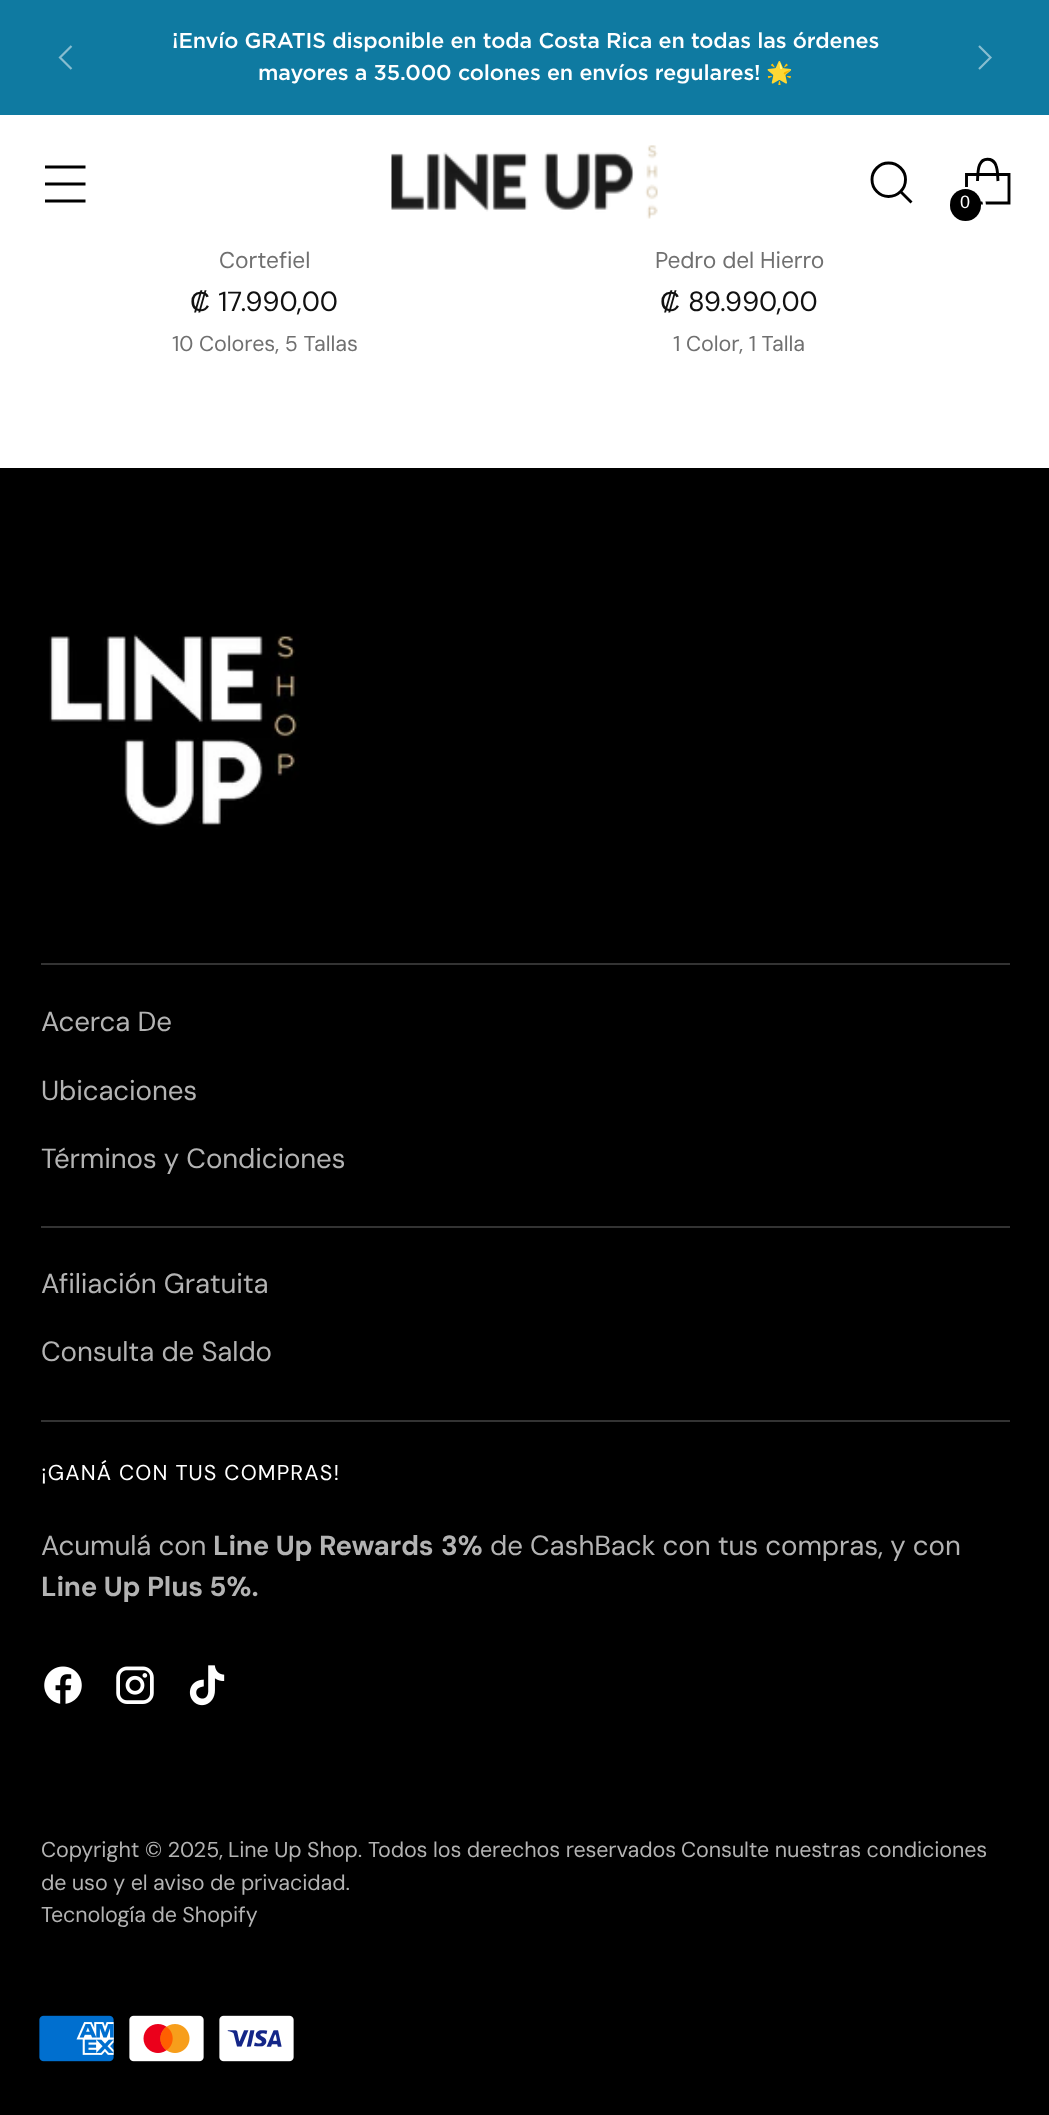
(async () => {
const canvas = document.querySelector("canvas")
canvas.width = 1049
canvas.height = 2115
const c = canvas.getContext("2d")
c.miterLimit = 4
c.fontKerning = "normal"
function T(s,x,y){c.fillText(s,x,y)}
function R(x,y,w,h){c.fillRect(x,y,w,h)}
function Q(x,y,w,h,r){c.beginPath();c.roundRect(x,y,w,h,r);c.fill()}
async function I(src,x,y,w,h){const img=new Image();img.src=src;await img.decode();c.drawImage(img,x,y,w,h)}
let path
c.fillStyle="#fff"
R(0,0,1049,2115)
c.fillStyle="#0f7aa1"
R(0,0,1049,115)
c.letterSpacing="-0.1px"
c.font="500 21.5px Gotham"
c.fillStyle="#fff"
T("¡Envío GRATIS disponible en toda Costa Rica en todas las órdenes",172,48)
T("mayores a 35.000 colones en envíos regulares!",258,80)
c.font="bold 21.5px Noto Color Emoji"
T("🌟",766,80)
path = new Path2D("M71.5 46l-11.5 11.5l11.5 11.5")
c.strokeStyle="#87bdd0"
c.lineWidth=2.2
c.stroke(path)
path = new Path2D("M979 69l11.5-11.5l-11.5-11.5")
c.stroke(path)
path = new Path2D("M45 184h40.5m-40.5-17h40.5m-40.5 34h40.5")
c.strokeStyle="#000"
c.lineWidth=2.9
c.stroke(path)
await I("1.png",391,145,267,74)
path = new Path2D("M888.5 196.5c9.5 0 17-7.5 17-17c0-9-7.5-16.5-17-16.5c-9 0-16.5 7.5-16.5 16.5c0 9.5 7.5 17 16.5 17z")
c.lineCap="round"
c.stroke(path)
path = new Path2D("M901 192l10.5 10.5")
c.lineCap="butt"
c.stroke(path)
path = new Path2D("M998 181c-.5-5 0-10.5-2-15.5c-1-3-3-5-6-6c-13-2.5-12 13.5-12.5 21.5")
c.lineJoin="bevel"
c.stroke(path)
path = new Path2D("M1009 203v-28.5h-42.5v28.5z")
c.lineJoin="miter"
c.stroke(path)
c.beginPath()
c.roundRect(948.5,188.5,36,35,17.5)
c.strokeStyle="#fff"
c.lineWidth=3
c.stroke()
c.fillStyle="#000"
Q(950,189,31,32,15.5)
c.letterSpacing="-0.15px"
c.font="18px Liberation Sans"
c.fillStyle="#fff"
T("0",960,208)
c.letterSpacing="-0.1px"
c.font="22.75px DM Sans"
c.fillStyle="#707070"
T("Cortefiel",219,268)
c.letterSpacing="-0.15px"
c.font="27.7px Liberation Sans"
c.fillStyle="#111"
T("₡",190,311)
c.font="27.7px DM Sans"
T("17.990,00",218,311)
c.letterSpacing="-0.1px"
c.font="21.5px DM Sans"
c.fillStyle="#707070"
T("10 Colores, 5 Tallas",172,351)
c.font="22.75px DM Sans"
T("Pedro del Hierro",655,268)
c.letterSpacing="-0.15px"
c.font="27.7px Liberation Sans"
c.fillStyle="#111"
T("₡",660,311)
c.font="27.7px DM Sans"
T("89.990,00",688,311)
c.letterSpacing="-0.1px"
c.font="21.5px DM Sans"
c.fillStyle="#707070"
T("1 Color, 1 Talla",673,351)
c.fillStyle="#000"
R(0,468,1049,1647)
c.fillStyle="#333"
R(41,963,969,2)
await I("2.png",49,634,251,195)
R(41,1226,969,2)
c.letterSpacing="-0.15px"
c.font="27.7px 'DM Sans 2'"
c.fillStyle="#b3b3b3"
T("Acerca De",41,1031)
T("Ubicaciones",41,1100)
T("Términos y Condiciones",41,1168)
c.fillStyle="#333"
R(41,1420,969,2)
c.fillStyle="#b3b3b3"
T("Afiliación Gratuita",41,1293)
T("Consulta de Saldo",41,1361)
c.letterSpacing="1.1px"
c.font="21.5px DM Sans"
c.fillStyle="#fff"
T("¡GANÁ CON TUS COMPRAS!",41,1480)
c.letterSpacing="-0.15px"
c.font="27.7px 'DM Sans 2'"
c.fillStyle="#b3b3b3"
T("Acumulá con",41,1555)
c.font="bold 27.7px DM Sans"
T("Line Up Rewards",213,1555)
T("3%",441,1555)
c.font="27.7px 'DM Sans 2'"
T("de CashBack con tus compras, y con",490,1555)
c.font="bold 27.7px DM Sans"
T("Line Up Plus 5%.",41,1596)
await I("3.png",44,1666,38,38)
await I("4.png",116,1666,38,38)
await I("5.png",189,1665,36,41)
c.font="21.5px DM Sans"
T("Copyright © 2025,",41,1857)
T("Line Up Shop.",228,1857)
T("Todos los derechos reservados",368,1857)
T("Consulte nuestras condiciones",681,1857)
T("de uso y el aviso de privacidad.",41,1890)
T("Tecnología de Shopify",41,1922)
await I("6.png",39,2015,75,47)
await I("7.png",129,2015,75,47)
await I("8.png",219,2015,75,47)
})()
